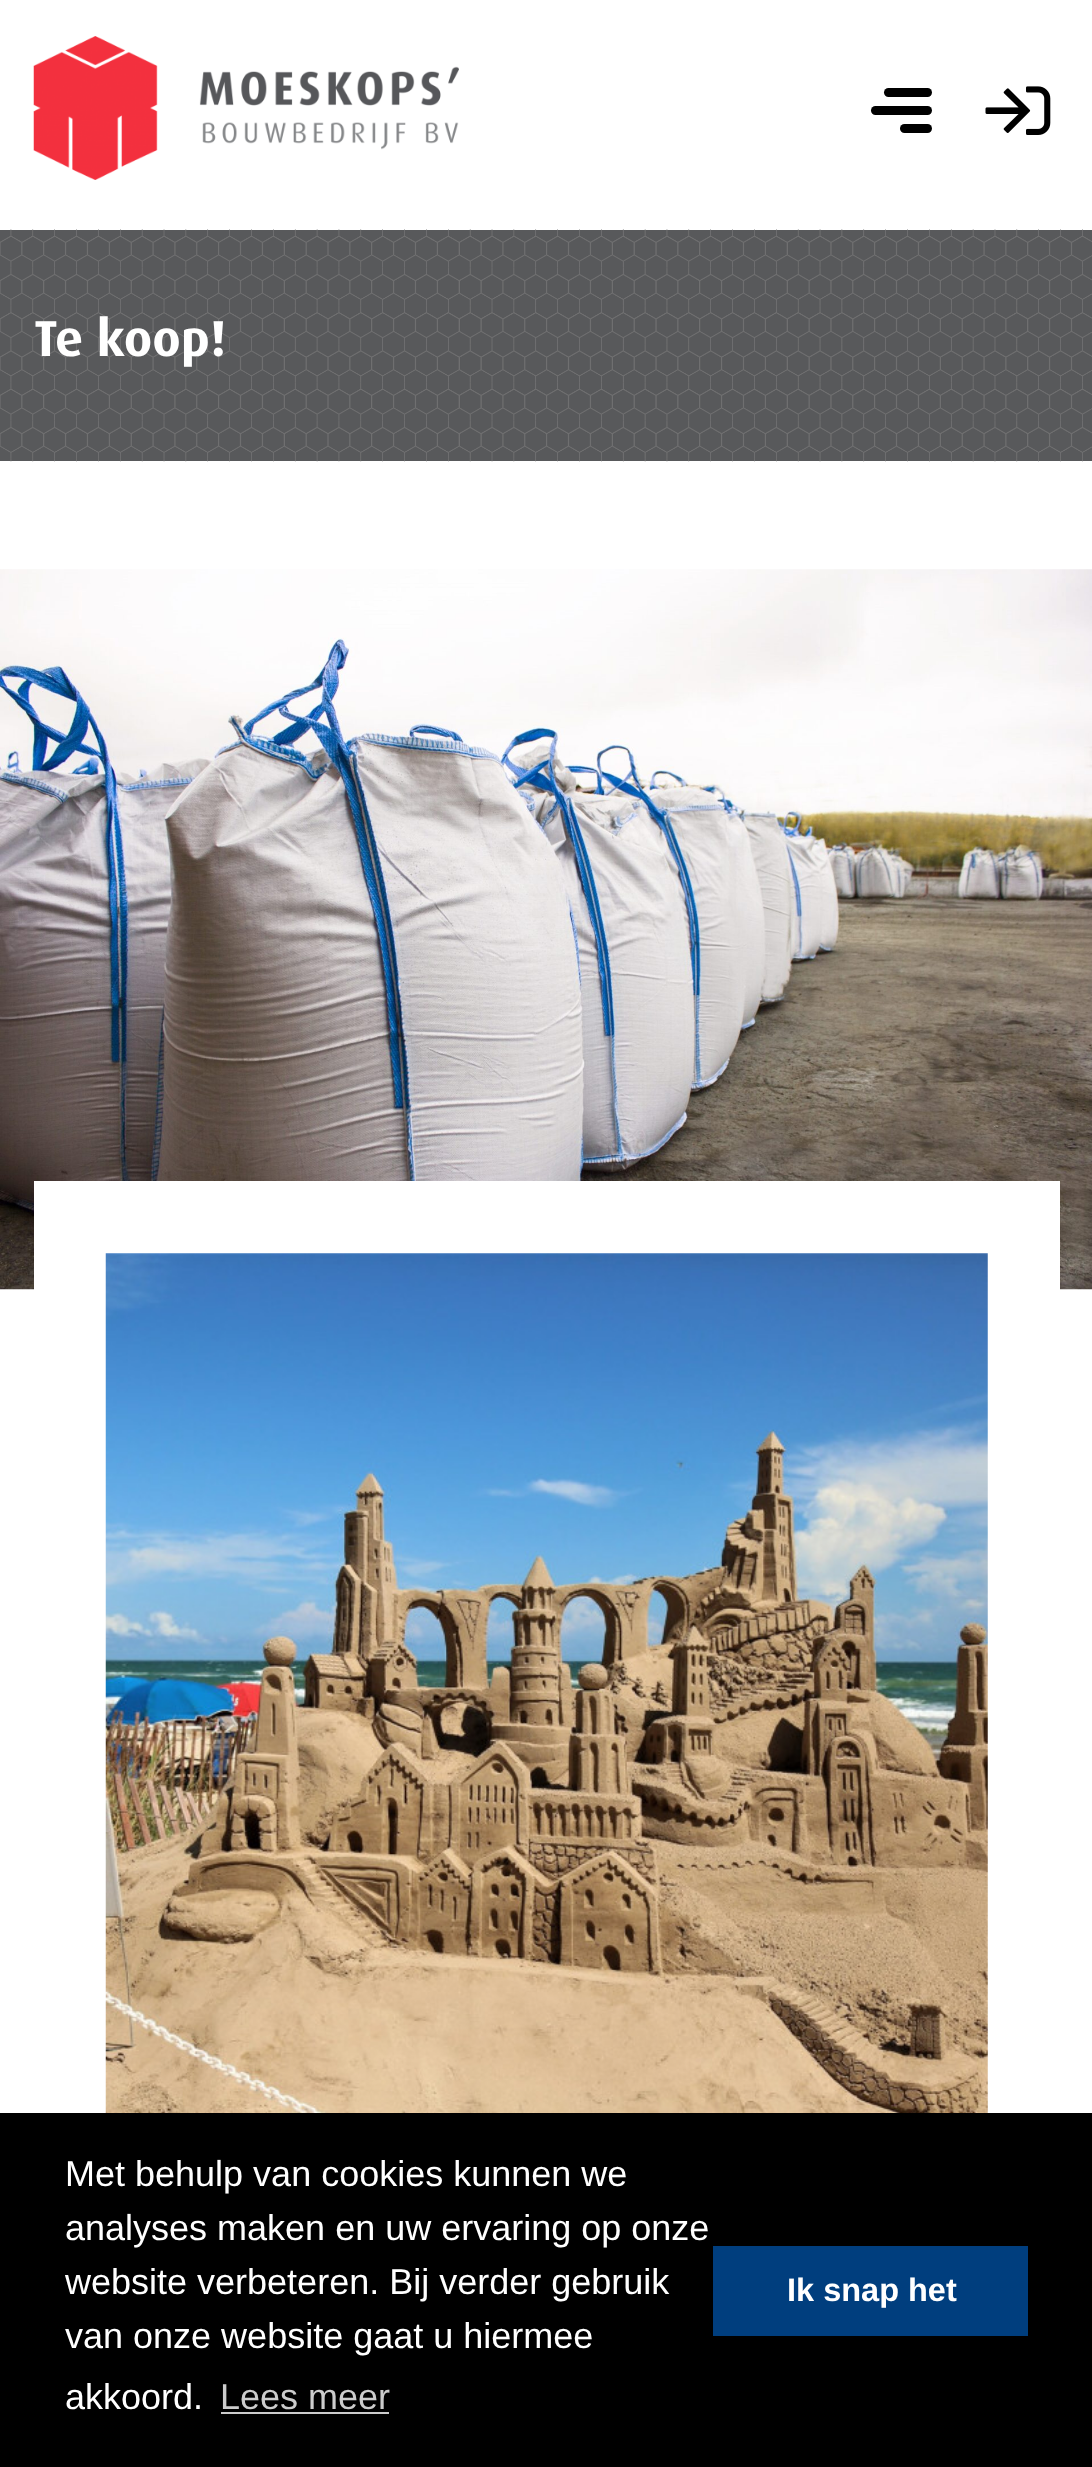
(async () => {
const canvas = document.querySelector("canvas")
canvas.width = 1092
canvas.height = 2467
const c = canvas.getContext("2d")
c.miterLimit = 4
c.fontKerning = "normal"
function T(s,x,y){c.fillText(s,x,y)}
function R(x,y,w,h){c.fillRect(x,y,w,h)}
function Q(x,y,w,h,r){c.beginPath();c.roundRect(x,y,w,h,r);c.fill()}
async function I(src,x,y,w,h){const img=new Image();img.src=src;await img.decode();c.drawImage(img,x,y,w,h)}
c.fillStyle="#fff"
R(0,0,1092,2467)
await I("1.png",33,36,426,144)
c.fillStyle="#000"
Q(884,88,48,9,4.5)
Q(871,106,61,9,4.5)
Q(900,124,32,9,4.5)
await I("2.png",985,86,66,49)
c.fillStyle="#58595b"
R(0,230,1092,231)
await I("3.png",0,229,1092,233)
c.font="bold 50.5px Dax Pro"
c.fillStyle="#fff"
T("Te koop!",34,356)
await I("4.png",0,569,1092,721)
R(34,1181,1026,109)
await I("5.png",105,1253,883,860)
c.fillStyle="#000"
R(0,2113,1092,354)
c.font="36px Liberation Sans"
c.fillStyle="#fff"
T("Met behulp van cookies kunnen we",65,2186)
T("analyses maken en uw ervaring op onze",65,2240)
T("website verbeteren. Bij verder gebruik",65,2294)
T("van onze website gaat u hiermee",65,2348)
T("akkoord.",65,2409)
c.fillStyle="#ccc"
T("Lees meer",220,2409)
R(221,2412,168,2)
c.fillStyle="#003e7e"
R(713,2246,315,90)
c.font="bold 32.5px Liberation Sans"
c.fillStyle="#fff"
T("Ik snap het",787,2301)
})()
